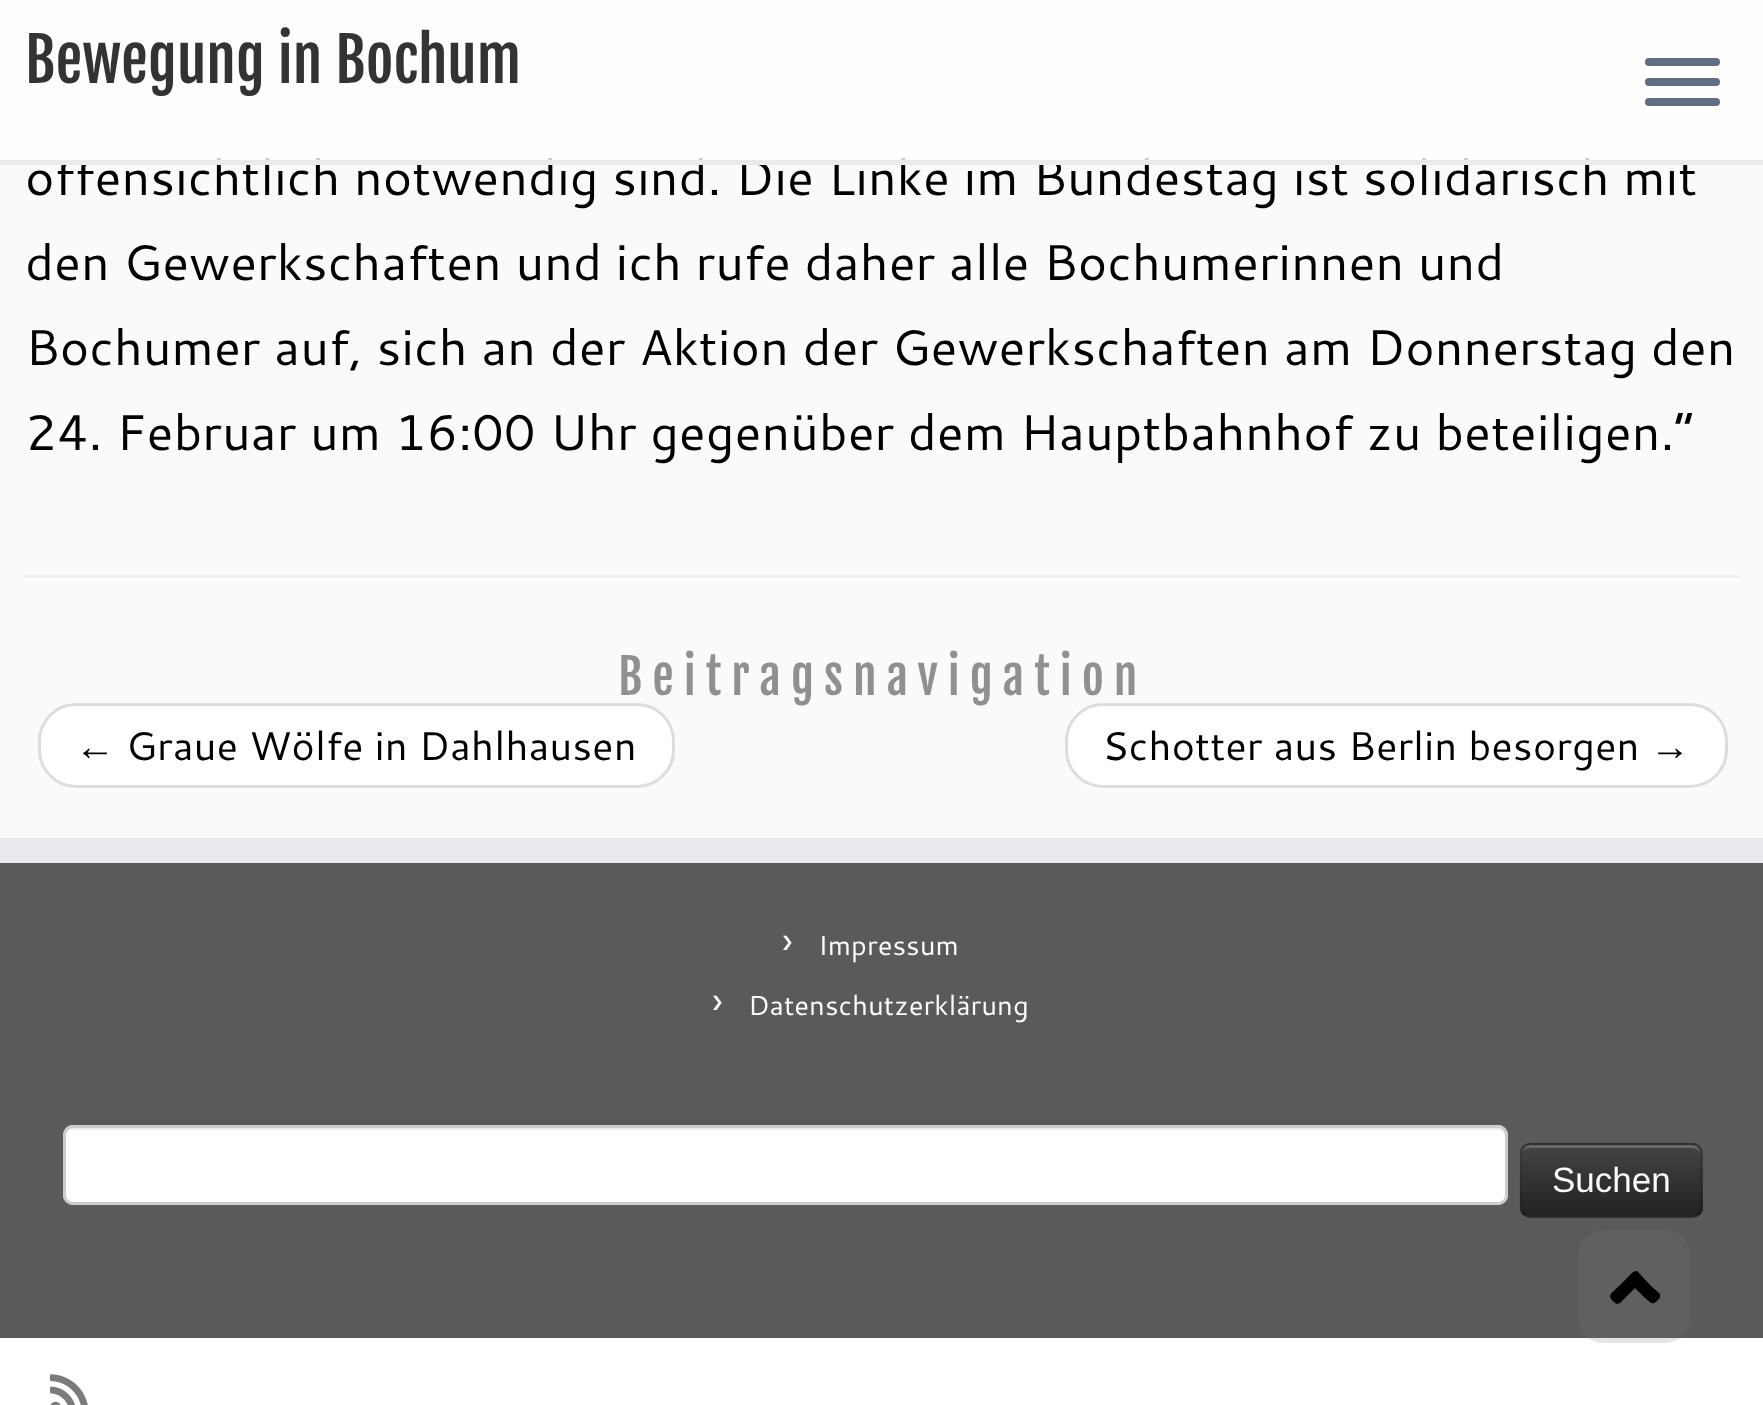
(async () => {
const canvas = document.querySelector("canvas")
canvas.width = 1763
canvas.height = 1405
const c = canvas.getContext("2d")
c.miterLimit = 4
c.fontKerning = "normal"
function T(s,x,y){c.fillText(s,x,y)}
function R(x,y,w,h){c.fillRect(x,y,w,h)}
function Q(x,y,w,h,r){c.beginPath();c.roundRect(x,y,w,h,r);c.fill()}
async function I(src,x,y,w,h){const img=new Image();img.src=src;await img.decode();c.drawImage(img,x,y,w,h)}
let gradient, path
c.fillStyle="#fafafa"
R(0,0,1763,1405)
c.font="50px Cantarell"
c.fillStyle="#000"
T("offensichtlich notwendig sind. Die Linke im Bundestag ist solidarisch mit",25,195)
c.fillStyle="#ffffffcc"
R(0,0,1763,160)
c.fillStyle="#e9eaee"
R(0,160,1763,5)
c.font="60px Fjalla One"
c.fillStyle="#333"
T("Bewegung in Bochum",25,83)
c.fillStyle="#5f6f81"
Q(1645,58,75,8,4)
Q(1645,78,75,8,4)
Q(1645,98,75,8,4)
c.font="50px Cantarell"
c.fillStyle="#000"
T("den Gewerkschaften und ich rufe daher alle Bochumerinnen und",25,280)
T("Bochumer auf, sich an der Aktion der Gewerkschaften am Donnerstag den",25,365)
T("24. Februar um 16:00 Uhr gegenüber dem Hauptbahnhof zu beteiligen.“",25,450)
c.fillStyle="#eee"
R(25,575,1715,3)
c.fillStyle="#fff"
R(25,578,1715,3)
c.beginPath()
c.roundRect(39.5,704.5,634,82,36.5)
c.fill()
c.strokeStyle="#ddd"
c.lineWidth=3
c.stroke()
c.beginPath()
c.roundRect(1066.5,704.5,660,82,36.5)
c.fill()
c.stroke()
c.letterSpacing="10px"
c.font="48px Fjalla One"
c.fillStyle="#909090"
T("Beitragsnavigation",618,695)
c.letterSpacing="0px"
c.font="40px Liberation Serif"
c.fillStyle="#000"
T("←",75,760)
c.font="40px Cantarell"
T("Graue Wölfe in Dahlhausen",126,760)
T("Schotter aus Berlin besorgen",1102,760)
c.font="40px Liberation Serif"
T("→",1650,760)
c.fillStyle="#5a5a5a"
R(0,863,1763,475)
c.fillStyle="#e9eaee"
R(0,838,1763,25)
c.font="40px Cantarell"
c.fillStyle="#fafafa"
T("›",782,955)
c.font="27.5px Cantarell"
T("Impressum",818,955)
c.font="40px Cantarell"
T("›",712,1015)
c.font="27.5px Cantarell"
T("Datenschutzerklärung",748,1015)
c.fillStyle="#fff"
Q(63,1125,1445,80,10)
c.fillStyle="#ececec"
path = new Path2D("M72 1130h1426c4 0 7 3 7 8v-2c0-4-4-8-8-8h-1424c-4 0-8 4-8 8v2c0-5 3-8 7-8z")
c.fill(path)
c.beginPath()
c.roundRect(64.5,1126.5,1442,77,8.5)
c.strokeStyle="#ccc"
c.stroke()
c.fillStyle="#363636"
Q(1520,1143,183,75,10)
c.save()
c.beginPath()
c.roundRect(1520,1143,183,75,10)
c.clip()
gradient = c.createLinearGradient(1611,1145,1611,1215)
gradient.addColorStop(0,"#444")
gradient.addColorStop(1,"#222")
c.fillStyle = gradient
R(1520,1145,183,70)
c.restore()
c.fillStyle="#ffffff33"
path = new Path2D("M1530 1148h162c5 0 8 3 8 7v-2c0-4-4-8-8-8h-161c-4 0-7 3-8 6c2-2 4-3 7-3z")
c.fill(path)
path = new Path2D("M1698.5 1213.5c-1.5 2-3.5 2.5-6 2.5h-162.5c-2.5 0-4.5-.5-6-2.5")
c.strokeStyle="#00000040"
c.lineWidth=2.5
c.stroke(path)
path = new Path2D("M1524 1213.5c-4-3.5-3-10.5-3-15v-18.5c0-41-6-36 36-36h108.5c42 0 35.5-5 35.5 36v18.5c0 4.5 1.5 11.5-2.5 15")
c.strokeStyle="#0000001a"
c.stroke(path)
c.font="35px Liberation Sans"
c.fillStyle="#fafafa"
T("Suchen",1552,1192)
c.fillStyle="#fff"
R(0,1338,1763,67)
await I("1.png",50,1374,38,31)
c.fillStyle="#77777733"
Q(1578,1230,112,113,25)
c.fillStyle="#000"
path = new Path2D("M1638 1272l14 15c7 6 12 8 5 14c-5 5-7 1-12-3l-10-10l-10 10c-2 2-6 8-10 5c-9-8-4-9 3-16l11-11c2-2 6-7 9-4z")
c.fill(path)
})()
